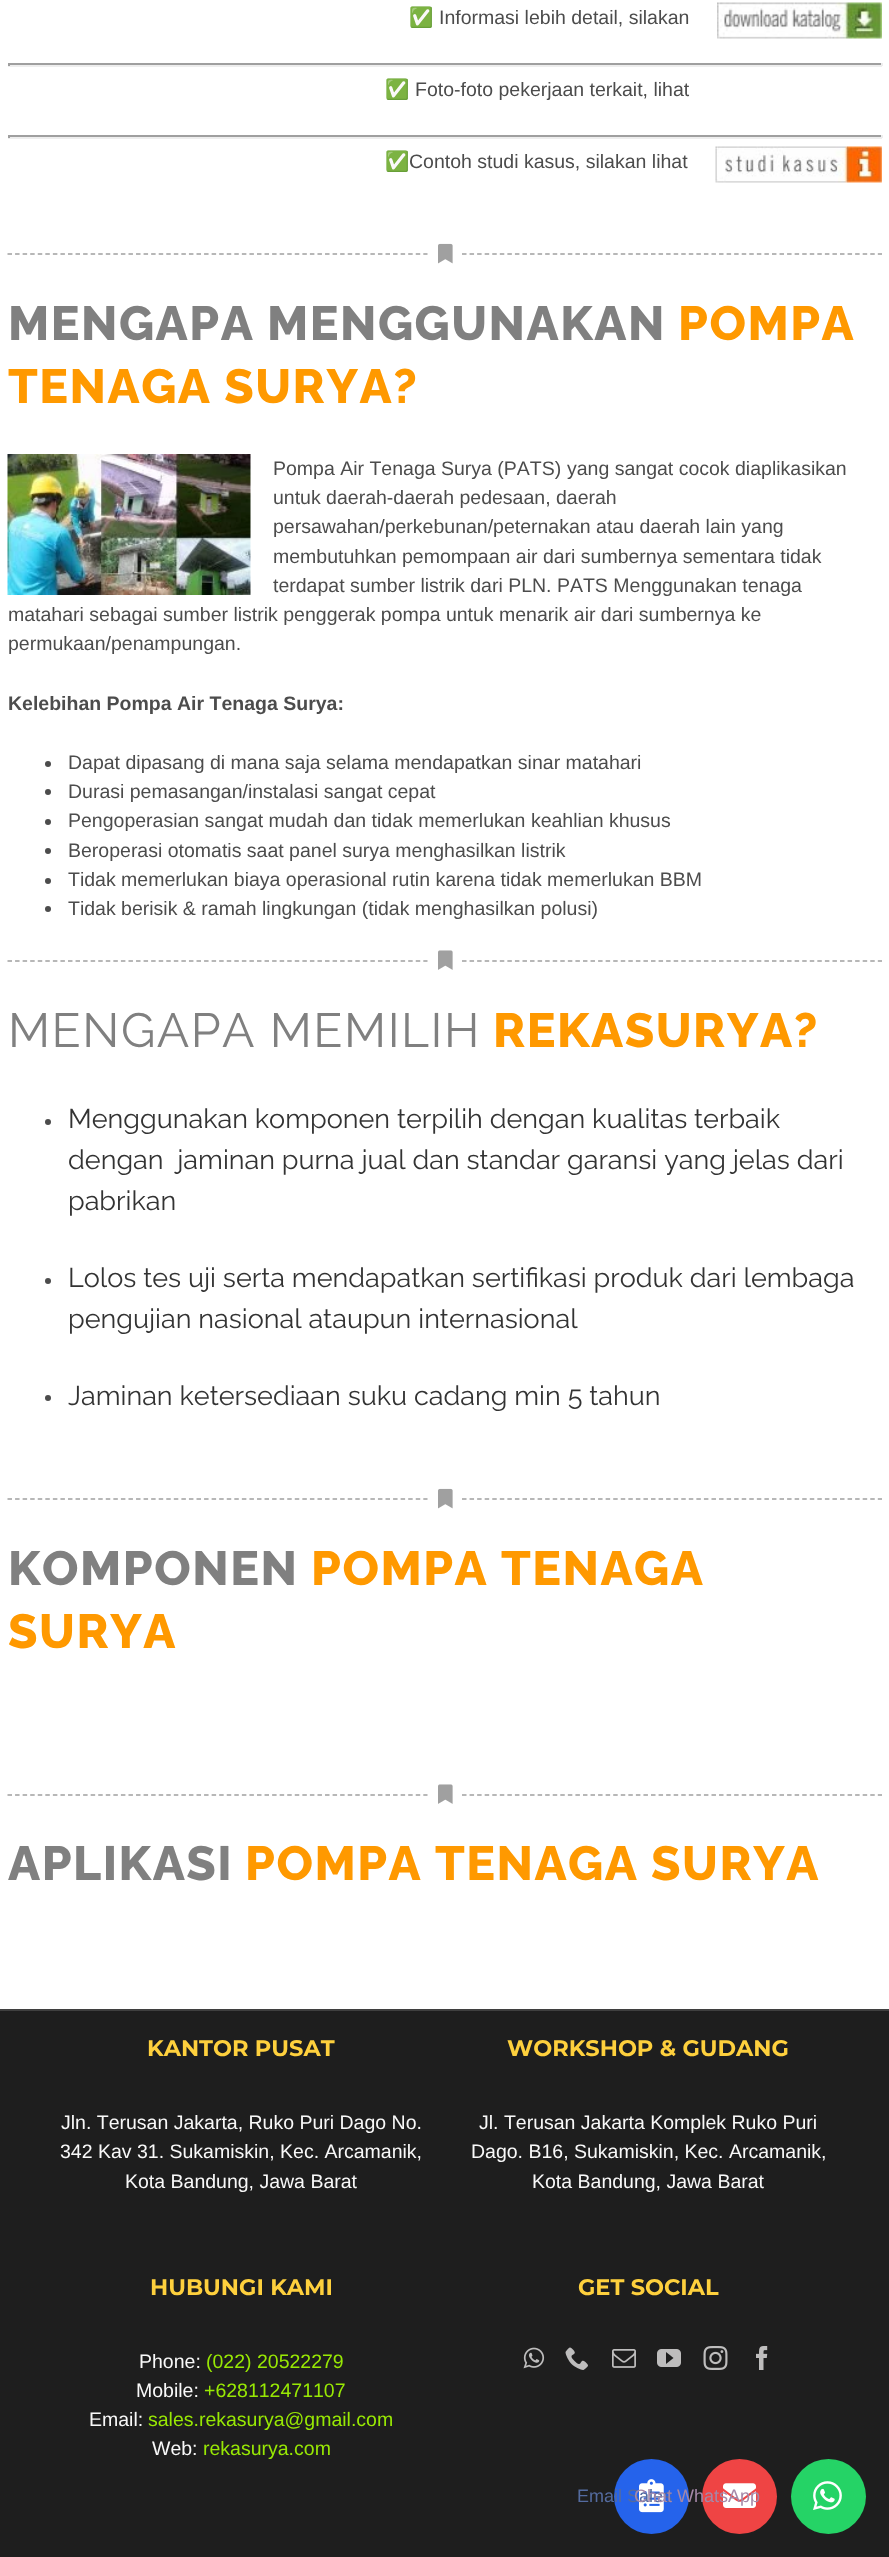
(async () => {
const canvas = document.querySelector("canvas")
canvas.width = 889
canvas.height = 2557
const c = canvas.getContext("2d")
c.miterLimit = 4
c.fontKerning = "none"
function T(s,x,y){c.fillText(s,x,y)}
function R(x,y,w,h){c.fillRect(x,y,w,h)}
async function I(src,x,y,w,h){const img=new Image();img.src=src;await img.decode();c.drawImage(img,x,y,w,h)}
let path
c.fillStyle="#fff"
R(0,0,889,2557)
c.font="19.5px Noto Color Emoji"
c.fillStyle="#4c4c4c"
T("✅",409,24)
c.font="19.5px Liberation Sans"
T("Informasi lebih detail, silakan",439,24)
await I("1.png",717,2,165,37)
c.fillStyle="#9f9f9f"
R(8,63,874,2)
c.fillStyle="#eee"
R(881,63,2,3)
R(8,65,874,2)
c.fillStyle="#9f9f9f"
R(8,63,2,3)
c.font="19.5px Noto Color Emoji"
c.fillStyle="#4c4c4c"
T("✅",385,96)
c.font="19.5px Liberation Sans"
T("Foto-foto pekerjaan terkait, lihat",415,96)
c.fillStyle="#9f9f9f"
R(8,135,874,2)
c.fillStyle="#eee"
R(881,135,2,3)
R(8,137,874,2)
c.fillStyle="#9f9f9f"
R(8,135,2,3)
c.font="19.5px Noto Color Emoji"
c.fillStyle="#4c4c4c"
T("✅",385,168)
c.font="19.5px Liberation Sans"
T("Contoh studi kasus, silakan lihat",409,168)
await I("2.png",715,146,167,37)
path = new Path2D("M7.5 254h420")
c.strokeStyle="#a0a0a0"
c.lineWidth=1.5
c.setLineDash([4.5,3.06])
c.stroke(path)
await I("3.png",438,243,15,21)
path = new Path2D("M462 254h420")
c.stroke(path)
c.letterSpacing="1.5px"
c.font="800 48px Raleway"
c.fillStyle="#808080"
T("MENGAPA MENGGUNAKAN",8,340)
c.fillStyle="#f90"
T("POMPA",678,340)
T("TENAGA SURYA?",8,403)
await I("4.png",7,454,244,141)
c.letterSpacing="0px"
c.font="19.5px Liberation Sans"
c.fillStyle="#4c4c4c"
T("Pompa Air Tenaga Surya (PATS)",273,475)
T("yang sangat cocok diaplikasikan",567,475)
T("untuk daerah-daerah pedesaan, daerah",273,504)
T("persawahan/perkebunan/peternakan atau daerah lain yang",273,533)
T("membutuhkan pemompaan air dari sumbernya sementara tidak",273,563)
T("terdapat sumber listrik dari PLN. PATS Menggunakan tenaga",273,592)
T("matahari sebagai sumber listrik penggerak pompa untuk menarik air dari sumbernya ke",8,621)
T("permukaan/penampungan.",8,650)
c.font="bold 19.5px Liberation Sans"
T("Kelebihan Pompa Air Tenaga Surya:",8,710)
c.beginPath()
c.arc(48,764,3,0,7)
c.fill()
c.font="19.5px Liberation Sans"
T("Dapat dipasang di mana saja selama mendapatkan sinar matahari",68,769)
c.beginPath()
c.arc(48,792,3,0,7)
c.fill()
T("Durasi pemasangan/instalasi sangat cepat",68,798)
c.beginPath()
c.arc(48,822,3,0,7)
c.fill()
T("Pengoperasian sangat mudah dan tidak memerlukan keahlian khusus",68,827)
c.beginPath()
c.arc(48,851,3,0,7)
c.fill()
T("Beroperasi otomatis saat panel surya menghasilkan listrik",68,857)
c.beginPath()
c.arc(48,881,3,0,7)
c.fill()
T("Tidak memerlukan biaya operasional rutin karena tidak memerlukan BBM",68,886)
c.beginPath()
c.arc(48,909,3,0,7)
c.fill()
T("Tidak berisik & ramah lingkungan (tidak menghasilkan polusi)",68,915)
path = new Path2D("M7.5 961h420")
c.stroke(path)
await I("5.png",438,950,15,20)
path = new Path2D("M462 961h420")
c.stroke(path)
c.letterSpacing="1.5px"
c.font="48px Raleway"
c.fillStyle="#808080"
T("MENGAPA MEMILIH",8,1047)
c.font="800 48px Raleway"
c.fillStyle="#f90"
T("REKASURYA?",493,1047)
c.fillStyle="#4c4c4c"
c.beginPath()
c.arc(48,1122,3,0,7)
c.fill()
c.letterSpacing="0px"
c.font="27px Raleway"
c.fillStyle="#333"
T("Menggunakan komponen terpilih dengan kualitas terbaik",68,1128)
T("dengan  jaminan purna jual dan standar garansi yang jelas dari",68,1169)
T("pabrikan",68,1210)
c.fillStyle="#4c4c4c"
c.beginPath()
c.arc(48,1281,3,0,7)
c.fill()
c.fillStyle="#333"
T("Lolos tes uji serta mendapatkan sertifikasi produk dari lembaga",68,1287)
T("pengujian nasional ataupun internasional",68,1328)
c.fillStyle="#4c4c4c"
c.beginPath()
c.arc(48,1398,3,0,7)
c.fill()
c.fillStyle="#333"
T("Jaminan ketersediaan suku cadang min 5 tahun",68,1405)
path = new Path2D("M7.5 1499h420")
c.stroke(path)
await I("3.png",438,1488,15,21)
path = new Path2D("M462 1499h420")
c.stroke(path)
c.letterSpacing="1.5px"
c.font="800 48px Raleway"
c.fillStyle="#808080"
T("KOMPONEN",8,1585)
c.fillStyle="#f90"
T("POMPA TENAGA",311,1585)
T("SURYA",8,1648)
path = new Path2D("M7.5 1795h420")
c.stroke(path)
await I("5.png",438,1784,15,20)
path = new Path2D("M462 1795h420")
c.stroke(path)
c.fillStyle="#808080"
T("APLIKASI",8,1880)
c.fillStyle="#f90"
T("POMPA TENAGA",245,1880)
T("SURYA",651,1880)
c.fillStyle="#1e1e1e"
R(0,2011,889,546)
c.fillStyle="#3f3f3f"
R(0,2009,889,2)
c.letterSpacing="0px"
c.font="bold 22.5px Montserrat"
c.fillStyle="#fed03d"
T("KANTOR PUSAT",147,2056)
c.font="19.5px Liberation Sans"
c.fillStyle="#f9f9f9"
T("Jln. Terusan Jakarta, Ruko Puri Dago No.",61,2129)
T("342 Kav 31. Sukamiskin, Kec. Arcamanik,",60,2158)
T("Kota Bandung, Jawa Barat",125,2188)
c.font="bold 22.5px Montserrat"
c.fillStyle="#fed03d"
T("WORKSHOP & GUDANG",507,2056)
c.font="19.5px Liberation Sans"
c.fillStyle="#f9f9f9"
T("Jl. Terusan Jakarta Komplek Ruko Puri",479,2129)
T("Dago. B16, Sukamiskin, Kec. Arcamanik,",471,2158)
T("Kota Bandung, Jawa Barat",532,2188)
c.font="bold 22.5px Montserrat"
c.fillStyle="#fed03d"
T("HUBUNGI KAMI",150,2295)
c.font="19.5px Liberation Sans"
c.fillStyle="#f9f9f9"
T("Phone:",139,2368)
c.fillStyle="#98e804"
T("(022) 20522279",206,2368)
c.fillStyle="#f9f9f9"
T("Mobile:",136,2397)
c.fillStyle="#98e804"
T("+628112471107",204,2397)
c.fillStyle="#f9f9f9"
T("Email:",89,2426)
c.fillStyle="#98e804"
T("sales.rekasurya@gmail.com",148,2426)
c.fillStyle="#f9f9f9"
T("Web:",152,2455)
c.fillStyle="#98e804"
T("rekasurya.com",203,2455)
c.font="bold 22.5px Montserrat"
c.fillStyle="#fed03d"
T("GET SOCIAL",578,2295)
await I("6.png",523,2347,22,22)
await I("7.png",565,2347,23,23)
await I("8.png",612,2349,24,19)
await I("9.png",657,2349,24,18)
await I("10.png",703,2346,25,24)
await I("11.png",756,2346,12,24)
c.fillStyle="#2563eb"
c.beginPath()
c.arc(651.5,2496.5,37.5,0,7)
c.fill()
await I("12.png",639,2479,25,34)
c.fillStyle="#ef4444"
c.beginPath()
c.arc(739.5,2496.5,37.5,0,7)
c.fill()
c.font="18px Liberation Sans"
c.fillStyle="#546b9f"
T("Email Sales",577,2502)
await I("13.png",723,2483,33,25)
c.fillStyle="#25d366"
c.beginPath()
c.arc(828.5,2496.5,37.5,0,7)
c.fill()
c.fillStyle="#a588a8"
T("Chat WhatsApp",634,2502)
await I("14.png",813,2481,29,29)
})()
